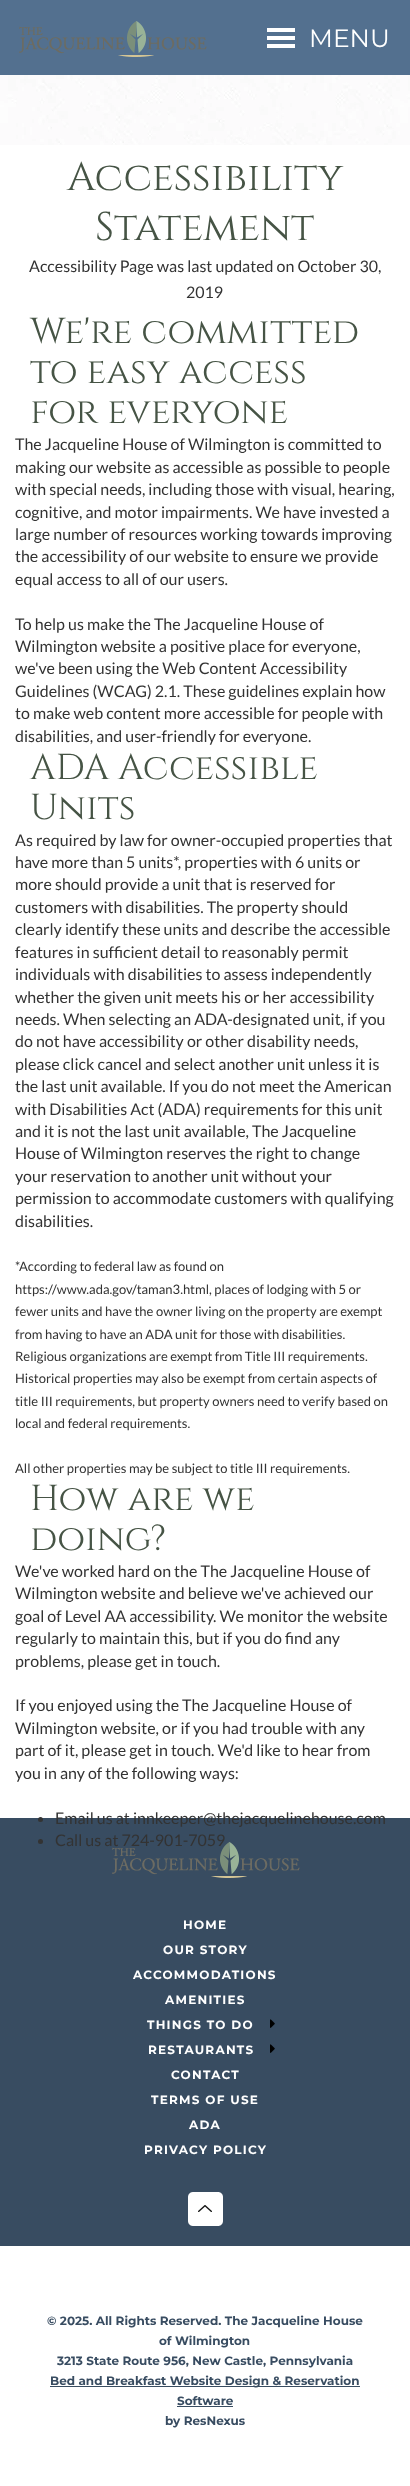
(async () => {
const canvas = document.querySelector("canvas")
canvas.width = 410
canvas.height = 2486
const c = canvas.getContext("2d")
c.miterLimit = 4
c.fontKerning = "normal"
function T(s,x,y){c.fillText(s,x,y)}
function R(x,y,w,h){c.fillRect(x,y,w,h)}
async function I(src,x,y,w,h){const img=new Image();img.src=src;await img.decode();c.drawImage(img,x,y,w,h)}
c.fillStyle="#fff"
R(0,0,410,2486)
c.fillStyle="#53708f"
R(0,0,410,75)
await I("1.png",19,21,188,36)
c.fillStyle="#fff"
R(267,28,28,4)
R(267,36,28,4)
R(267,44,28,4)
c.font="25px Montserrat"
T("MENU",309,47)
await I("2.png",0,75,410,70)
c.font="40px Cinzel"
c.fillStyle="#465445"
T("Accessibility",67,190)
T("Statement",95,240)
c.font="16px Lato"
c.fillStyle="#333"
T("Accessibility Page was last updated on October 30,",29,272)
T("2019",186,298)
c.font="36px Cinzel"
c.fillStyle="#465445"
T("We're committed",30,343)
T("to easy access",30,383)
T("for everyone",30,423)
c.font="16px Lato"
c.fillStyle="#333"
T("The Jacqueline House of Wilmington is committed to",15,450)
T("making our website as accessible as possible to people",15,473)
T("with special needs, including those with visual, hearing,",15,495)
T("cognitive, and motor impairments. We have invested a",15,518)
T("large number of resources working towards improving",15,540)
T("the accessibility of our website to ensure we provide",15,562)
T("equal access to all of our users.",15,585)
T("To help us make the The Jacqueline House of",15,630)
T("Wilmington website a positive place for everyone,",15,652)
T("we've been using the Web Content Accessibility",15,674)
T("Guidelines (WCAG) 2.1. These guidelines explain how",15,697)
T("to make web content more accessible for people with",15,719)
T("disabilities, and user-friendly for everyone.",15,742)
c.font="36px Cinzel"
c.fillStyle="#465445"
T("ADA Accessible",30,779)
T("Units",30,819)
c.font="16px Lato"
c.fillStyle="#333"
T("As required by law for owner-occupied properties that",15,846)
T("have more than 5 units*, properties with 6 units or",15,868)
T("more should provide a unit that is reserved for",15,890)
T("customers with disabilities. The property should",15,913)
T("clearly identify these units and describe the accessible",15,935)
T("features in sufficient detail to reasonably permit",15,958)
T("individuals with disabilities to assess independently",15,980)
T("whether the given unit meets his or her accessibility",15,1003)
T("needs. When selecting an ADA-designated unit, if you",15,1025)
T("do not have accessibility or other disability needs,",15,1047)
T("please click cancel and select another unit unless it is",15,1070)
T("the last unit available. If you do not meet the American",15,1092)
T("with Disabilities Act (ADA) requirements for this unit",15,1115)
T("and it is not the last unit available, The Jacqueline",15,1137)
T("House of Wilmington reserves the right to change",15,1159)
T("your reservation to another unit without your",15,1182)
T("permission to accommodate customers with qualifying",15,1204)
T("disabilities.",15,1227)
c.font="13px Lato"
T("*According to federal law as found on",15,1271)
T("https://www.ada.gov/taman3.html, places of lodging with 5 or",15,1294)
T("fewer units and have the owner living on the property are exempt",15,1316)
T("from having to have an ADA unit for those with disabilities.",15,1339)
T("Religious organizations are exempt from Title III requirements.",15,1361)
T("Historical properties may also be exempt from certain aspects of",15,1383)
T("title III requirements, but property owners need to verify based on",15,1406)
T("local and federal requirements.",15,1428)
T("All other properties may be subject to title III requirements.",15,1473)
c.font="36px Cinzel"
c.fillStyle="#465445"
T("How are we",30,1510)
T("doing?",30,1550)
c.font="16px Lato"
c.fillStyle="#333"
T("We've worked hard on the The Jacqueline House of",15,1577)
T("Wilmington website and believe we've achieved our",15,1599)
T("goal of Level AA accessibility. We monitor the website",15,1622)
T("regularly to maintain this, but if you do find any",15,1644)
T("problems, please get in touch.",15,1667)
T("If you enjoyed using the The Jacqueline House of",15,1711)
T("Wilmington website, or if you had trouble with any",15,1734)
T("part of it, please get in touch. We'd like to hear from",15,1756)
T("you in any of the following ways:",15,1779)
c.fillStyle="#384c61"
R(0,1818,410,428)
c.fillStyle="#333"
c.beginPath()
c.arc(40.5,1819.5,2.5,0,7)
c.fill()
T("Email us at innkeeper@thejacquelinehouse.com",55,1824)
c.beginPath()
c.arc(40.5,1841.5,2.5,0,7)
c.fill()
T("Call us at 724-901-7059",55,1846)
await I("3.png",112,1842,188,36)
c.letterSpacing="1.25px"
c.font="bold 12px Montserrat"
c.fillStyle="#fff"
T("HOME",183,1929)
T("OUR STORY",163,1954)
T("ACCOMMODATIONS",133,1979)
T("AMENITIES",165,2004)
T("THINGS TO DO",147,2029)
await I("4.png",270,2019,5,9)
T("RESTAURANTS",148,2054)
await I("4.png",270,2044,5,9)
T("CONTACT",171,2079)
T("TERMS OF USE",151,2104)
T("ADA",189,2129)
T("PRIVACY POLICY",144,2154)
await I("5.png",188,2192,35,34)
c.letterSpacing="0px"
c.fillStyle="#384c61"
T("© 2025. All Rights Reserved. The Jacqueline House",47,2325)
T("of Wilmington",159,2345)
T("3213 State Route 956, New Castle, Pennsylvania",57,2365)
R(50,2386,310,1)
T("Bed and Breakfast Website Design & Reservation",50,2385)
T("Software",177,2405)
R(177,2406,56,1)
T("by ResNexus",165,2425)
})()
